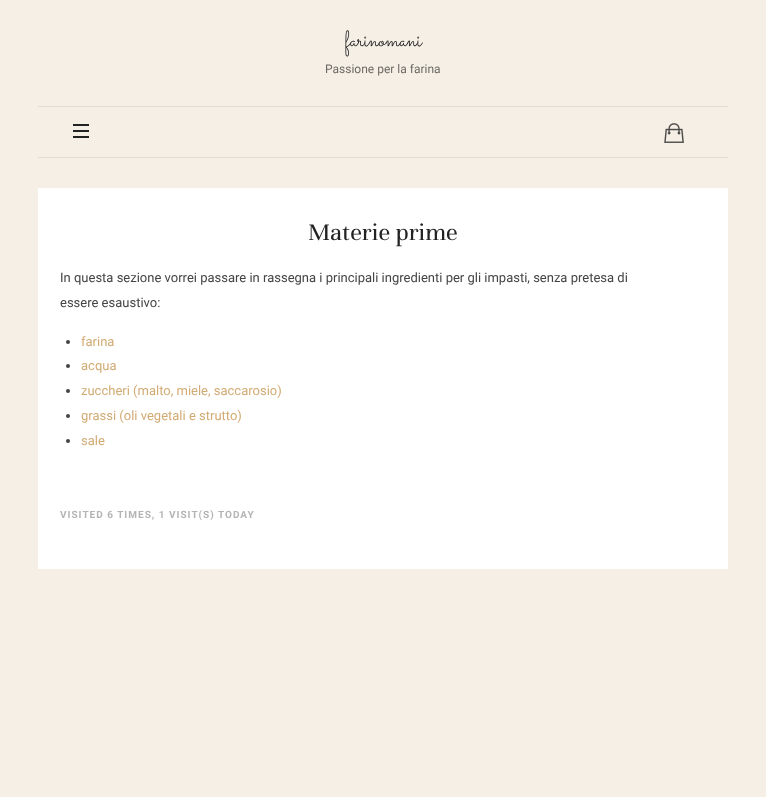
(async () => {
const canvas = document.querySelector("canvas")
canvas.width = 766
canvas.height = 797
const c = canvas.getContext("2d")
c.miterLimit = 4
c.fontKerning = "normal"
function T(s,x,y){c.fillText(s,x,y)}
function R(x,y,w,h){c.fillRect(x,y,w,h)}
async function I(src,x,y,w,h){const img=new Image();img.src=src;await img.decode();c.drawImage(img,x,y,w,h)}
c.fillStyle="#f6efe5"
R(0,0,766,797)
c.font="22px Sacramento"
c.fillStyle="#222"
T("farinomani",345,46)
c.font="12px Roboto"
c.fillStyle="#6c6a66"
T("Passione per la farina",325,73)
c.fillStyle="#e2dcd3"
R(38,106,690,1)
R(38,157,690,1)
c.fillStyle="#222"
R(73,130,16,2)
R(73,124,16,2)
R(73,136,16,2)
await I("1.png",664,123,20,20)
c.fillStyle="#fff"
R(38,188,690,381)
c.font="26px Unna"
c.fillStyle="#222"
T("Materie prime",308,240)
c.font="13px Roboto"
c.fillStyle="#444"
T("In questa sezione vorrei passare in rassegna i principali ingredienti per gli impasti, senza pretesa di",60,282)
T("essere esaustivo:",60,307)
c.beginPath()
c.arc(68,342,2,0,7)
c.fill()
c.fillStyle="#d2ab74"
T("farina",81,346)
c.fillStyle="#444"
c.beginPath()
c.arc(68,366,2,0,7)
c.fill()
c.fillStyle="#d2ab74"
T("acqua",81,370)
c.fillStyle="#444"
c.beginPath()
c.arc(68,391,2,0,7)
c.fill()
c.fillStyle="#d2ab74"
T("zuccheri (malto, miele, saccarosio)",81,395)
c.fillStyle="#444"
c.beginPath()
c.arc(68,416,2,0,7)
c.fill()
c.fillStyle="#d2ab74"
T("grassi (oli vegetali e strutto)",81,420)
c.fillStyle="#444"
c.beginPath()
c.arc(68,441,2,0,7)
c.fill()
c.fillStyle="#d2ab74"
T("sale",81,445)
c.letterSpacing="1px"
c.font="bold 10px Roboto"
c.fillStyle="#b4b4b4"
T("VISITED 6 TIMES, 1 VISIT(S) TODAY",60,518)
})()
